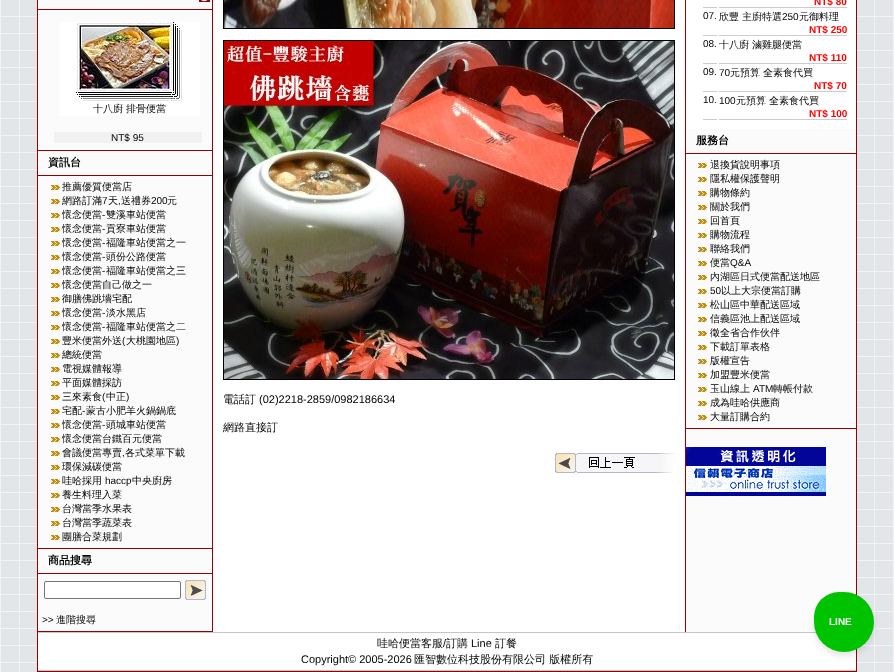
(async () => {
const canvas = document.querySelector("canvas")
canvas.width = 894
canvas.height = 672
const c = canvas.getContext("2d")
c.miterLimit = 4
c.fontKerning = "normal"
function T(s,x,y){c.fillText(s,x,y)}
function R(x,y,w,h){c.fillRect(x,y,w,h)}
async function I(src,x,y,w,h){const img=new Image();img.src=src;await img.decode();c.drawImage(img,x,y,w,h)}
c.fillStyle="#fff"
R(0,0,894,672)
await I("1.png",0,0,894,672)
c.fillStyle="#fbfbfb"
R(38,0,818,632)
c.strokeStyle="#900"
c.strokeRect(37.5,-.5,819,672)
c.fillStyle="#900"
R(212,0,1,632)
await I("2.png",199,0,11,2)
R(38,9,174,1)
R(38,150,174,1)
c.fillStyle="#fff"
R(59,22,141,94)
await I("3.png",76,22,106,80)
c.font="500 10px WenQuanYi Zen Hei"
c.fillStyle="#000"
T("十八廚 排骨便當",93,112)
c.fillStyle="#f1f1f1"
R(54,132,148,11)
c.font="10px Liberation Sans"
c.fillStyle="#000"
T("NT$ 95",111,141)
c.font="bold 11px WenQuanYi Zen Hei"
T("資訊台",48,166)
c.fillStyle="#900"
R(38,175,174,1)
R(38,548,174,1)
await I("4.png",51,185,9,5)
c.font="500 10px WenQuanYi Zen Hei"
c.fillStyle="#000"
T("推薦優質便當店",62,190)
await I("4.png",51,199,9,5)
T("網路訂滿",62,204)
c.font="10px Liberation Sans"
T("7",102,204)
c.font="500 10px WenQuanYi Zen Hei"
T("天 送禮券",108,204)
c.font="10px Liberation Sans"
T("200",151,204)
c.font="500 10px WenQuanYi Zen Hei"
T("元",167,204)
c.font="10px Liberation Sans"
T(",",118,204)
await I("4.png",51,213,9,5)
c.font="500 10px WenQuanYi Zen Hei"
T("懷念便當",62,218)
c.font="10px Liberation Sans"
T("-",102,218)
c.font="500 10px WenQuanYi Zen Hei"
T("雙溪車站便當",106,218)
await I("4.png",51,227,9,5)
T("懷念便當",62,232)
c.font="10px Liberation Sans"
T("-",102,232)
c.font="500 10px WenQuanYi Zen Hei"
T("貢寮車站便當",106,232)
await I("4.png",51,241,9,5)
T("懷念便當",62,246)
c.font="10px Liberation Sans"
T("-",102,246)
c.font="500 10px WenQuanYi Zen Hei"
T("福隆車站便當之一",106,246)
await I("4.png",51,255,9,5)
T("懷念便當",62,260)
c.font="10px Liberation Sans"
T("-",102,260)
c.font="500 10px WenQuanYi Zen Hei"
T("頭份公路便當",106,260)
await I("4.png",51,269,9,5)
T("懷念便當",62,274)
c.font="10px Liberation Sans"
T("-",102,274)
c.font="500 10px WenQuanYi Zen Hei"
T("福隆車站便當之三",106,274)
await I("4.png",51,283,9,5)
T("懷念便當自己做之一",62,288)
await I("4.png",51,297,9,5)
T("御膳佛跳墻宅配",62,302)
await I("4.png",51,311,9,5)
T("懷念便當",62,316)
c.font="10px Liberation Sans"
T("-",102,316)
c.font="500 10px WenQuanYi Zen Hei"
T("淡水黑店",106,316)
await I("4.png",51,325,9,5)
T("懷念便當",62,330)
c.font="10px Liberation Sans"
T("-",102,330)
c.font="500 10px WenQuanYi Zen Hei"
T("福隆車站便當之二",106,330)
await I("4.png",51,339,9,5)
T("豐米便當外送",62,344)
c.font="10px Liberation Sans"
T("(",122,344)
c.font="500 10px WenQuanYi Zen Hei"
T("大桃園地區",126,344)
c.font="10px Liberation Sans"
T(")",176,344)
await I("4.png",51,353,9,5)
c.font="500 10px WenQuanYi Zen Hei"
T("總統便當",62,358)
await I("4.png",51,367,9,5)
T("電視媒體報導",62,372)
await I("4.png",51,381,9,5)
T("平面媒體採訪",62,386)
await I("4.png",51,395,9,5)
T("三來素食",62,400)
c.font="10px Liberation Sans"
T("(",102,400)
c.font="500 10px WenQuanYi Zen Hei"
T("中正",106,400)
c.font="10px Liberation Sans"
T(")",126,400)
await I("4.png",51,409,9,5)
c.font="500 10px WenQuanYi Zen Hei"
T("宅配",62,414)
c.font="10px Liberation Sans"
T("-",82,414)
c.font="500 10px WenQuanYi Zen Hei"
T("蒙古小肥羊火鍋鍋底",86,414)
await I("4.png",51,423,9,5)
T("懷念便當",62,428)
c.font="10px Liberation Sans"
T("-",102,428)
c.font="500 10px WenQuanYi Zen Hei"
T("頭城車站便當",106,428)
await I("4.png",51,437,9,5)
T("懷念便當台鐵百元便當",62,442)
await I("4.png",51,451,9,5)
T("會議便當專賣 各式菜單下載",62,456)
c.font="10px Liberation Sans"
T(",",122,456)
await I("4.png",51,465,9,5)
c.font="500 10px WenQuanYi Zen Hei"
T("環保減碳便當",62,470)
await I("4.png",51,479,9,5)
T("哇哈採用",62,484)
c.font="10px Liberation Sans"
T("haccp",105,484)
c.font="500 10px WenQuanYi Zen Hei"
T("中央廚房",132,484)
await I("4.png",51,493,9,5)
T("養生料理入菜",62,498)
await I("4.png",51,507,9,5)
T("台灣當季水果表",62,512)
await I("4.png",51,521,9,5)
T("台灣當季蔬菜表",62,526)
await I("4.png",51,535,9,5)
T("團膳合菜規劃",62,540)
c.font="bold 11px WenQuanYi Zen Hei"
T("商品搜尋",48,564)
c.fillStyle="#900"
R(38,573,174,1)
R(38,631,174,1)
c.fillStyle="#fff"
c.beginPath()
c.roundRect(44.5,581.5,136,17,1.5)
c.fill()
c.strokeStyle="#767676"
c.stroke()
await I("5.png",185,580,21,20)
c.font="10px Liberation Sans"
c.fillStyle="#000"
T(">>",42,623)
c.font="500 10px WenQuanYi Zen Hei"
T("進階搜尋",56,623)
c.fillStyle="#fff"
R(213,0,472,632)
c.strokeStyle="#000"
c.strokeRect(223.5,-.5,451,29)
await I("6.png",224,0,450,28)
c.strokeRect(223.5,40.5,451,339)
await I("7.png",224,41,450,338)
c.font="500 11px WenQuanYi Zen Hei"
c.fillStyle="#000"
T("電話訂",223,403)
c.font="11px Liberation Sans"
T("(02)2218-2859/0982186634",259,403)
c.font="500 11px WenQuanYi Zen Hei"
T("網路直接訂",223,431)
await I("8.png",555,453,120,20)
c.fillStyle="#900"
R(685,0,1,632)
c.fillStyle="#fff"
R(686,0,170,129)
c.fillStyle="#ccc"
R(719,7,128,1)
c.font="bold 10px Liberation Sans"
c.fillStyle="#f00"
T("NT$ 80",814,5)
c.fillStyle="#ccc"
R(703,7,14,1)
R(703,35,14,1)
c.font="10px Liberation Sans"
c.fillStyle="#000"
T("07.",703,19)
c.fillStyle="#ccc"
R(719,35,128,1)
c.font="500 10px WenQuanYi Zen Hei"
c.fillStyle="#000"
T("欣豐 主廚特選",719,20)
c.font="10px Liberation Sans"
T("250",782,20)
c.font="500 10px WenQuanYi Zen Hei"
T("元御料理",799,20)
c.font="bold 10px Liberation Sans"
c.fillStyle="#f00"
T("NT$ 250",809,33)
c.fillStyle="#ccc"
R(703,63,14,1)
c.font="10px Liberation Sans"
c.fillStyle="#000"
T("08.",703,47)
c.fillStyle="#ccc"
R(719,63,128,1)
c.font="500 10px WenQuanYi Zen Hei"
c.fillStyle="#000"
T("十八廚 滷雞腿便當",719,48)
c.font="bold 10px Liberation Sans"
c.fillStyle="#f00"
T("NT$ 110",809,61)
c.fillStyle="#ccc"
R(703,91,14,1)
c.font="10px Liberation Sans"
c.fillStyle="#000"
T("09.",703,75)
c.fillStyle="#ccc"
R(719,91,128,1)
c.fillStyle="#000"
T("70",719,76)
c.font="500 10px WenQuanYi Zen Hei"
T("元預算 全素食代買",730,76)
c.font="bold 10px Liberation Sans"
c.fillStyle="#f00"
T("NT$ 70",814,89)
c.fillStyle="#ccc"
R(703,119,14,1)
c.font="10px Liberation Sans"
c.fillStyle="#000"
T("10.",703,103)
c.fillStyle="#ccc"
R(719,119,128,1)
c.fillStyle="#000"
T("100",719,104)
c.font="500 10px WenQuanYi Zen Hei"
T("元預算 全素食代買",736,104)
c.font="bold 10px Liberation Sans"
c.fillStyle="#f00"
T("NT$ 100",809,117)
c.font="bold 11px WenQuanYi Zen Hei"
c.fillStyle="#000"
T("服務台",696,144)
c.fillStyle="#900"
R(686,153,170,1)
R(686,428,170,1)
await I("4.png",698,163,9,5)
c.font="500 10px WenQuanYi Zen Hei"
c.fillStyle="#000"
T("退換貨說明事項",710,168)
await I("4.png",698,177,9,5)
T("隱私權保護聲明",710,182)
await I("4.png",698,191,9,5)
T("購物條約",710,196)
await I("4.png",698,205,9,5)
T("關於我們",710,210)
await I("4.png",698,219,9,5)
T("回首頁",710,224)
await I("4.png",698,233,9,5)
T("購物流程",710,238)
await I("4.png",698,247,9,5)
T("聯絡我們",710,252)
await I("4.png",698,261,9,5)
T("便當",710,266)
c.font="10px Liberation Sans"
T("Q&A",730,266)
await I("4.png",698,275,9,5)
c.font="500 10px WenQuanYi Zen Hei"
T("內湖區日式便當配送地區",710,280)
await I("4.png",698,289,9,5)
c.font="10px Liberation Sans"
T("50",710,294)
c.font="500 10px WenQuanYi Zen Hei"
T("以上大宗便當訂購",721,294)
await I("4.png",698,303,9,5)
T("松山區中華配送區域",710,308)
await I("4.png",698,317,9,5)
T("信義區池上配送區域",710,322)
await I("4.png",698,331,9,5)
T("徵全省合作伙伴",710,336)
await I("4.png",698,345,9,5)
T("下載訂單表格",710,350)
await I("4.png",698,359,9,5)
T("版權宣告",710,364)
await I("4.png",698,373,9,5)
T("加盟豐米便當",710,378)
await I("4.png",698,387,9,5)
T("玉山線上",710,392)
c.font="10px Liberation Sans"
T("ATM",753,392)
c.font="500 10px WenQuanYi Zen Hei"
T("轉帳付款",773,392)
await I("4.png",698,401,9,5)
T("成為哇哈供應商",710,406)
await I("4.png",698,415,9,5)
T("大量訂購合約",710,420)
await I("9.png",686,447,140,49)
c.fillStyle="#c5c5c5"
R(38,632,779,1)
R(38,670,818,1)
c.fillStyle="#fff"
R(38,633,818,37)
c.font="500 11px WenQuanYi Zen Hei"
c.fillStyle="#000"
T("哇哈便當客服",377,647)
c.font="11px Liberation Sans"
T("/",443,647)
c.font="500 11px WenQuanYi Zen Hei"
T("訂購",446,647)
c.font="11px Liberation Sans"
T("Line",471,647)
c.font="500 11px WenQuanYi Zen Hei"
T("訂餐",495,647)
c.font="11px Liberation Sans"
T("Copyright© 2005-2026",301,663)
c.font="500 11px WenQuanYi Zen Hei"
T("匯智數位科技股份有限公司 版權所有",414,663)
c.fillStyle="#0000001a"
c.filter="blur(3px)"
c.beginPath()
c.roundRect(814,596,60,60,30)
c.fill()
c.filter="none"
c.fillStyle="#00c300"
c.beginPath()
c.arc(844,622,30,0,7)
c.fill()
c.beginPath()
c.arc(839,617,25,0,7)
c.fill()
c.font="bold 10px Liberation Sans"
c.fillStyle="#fff"
T("LINE",829,625)
})()
